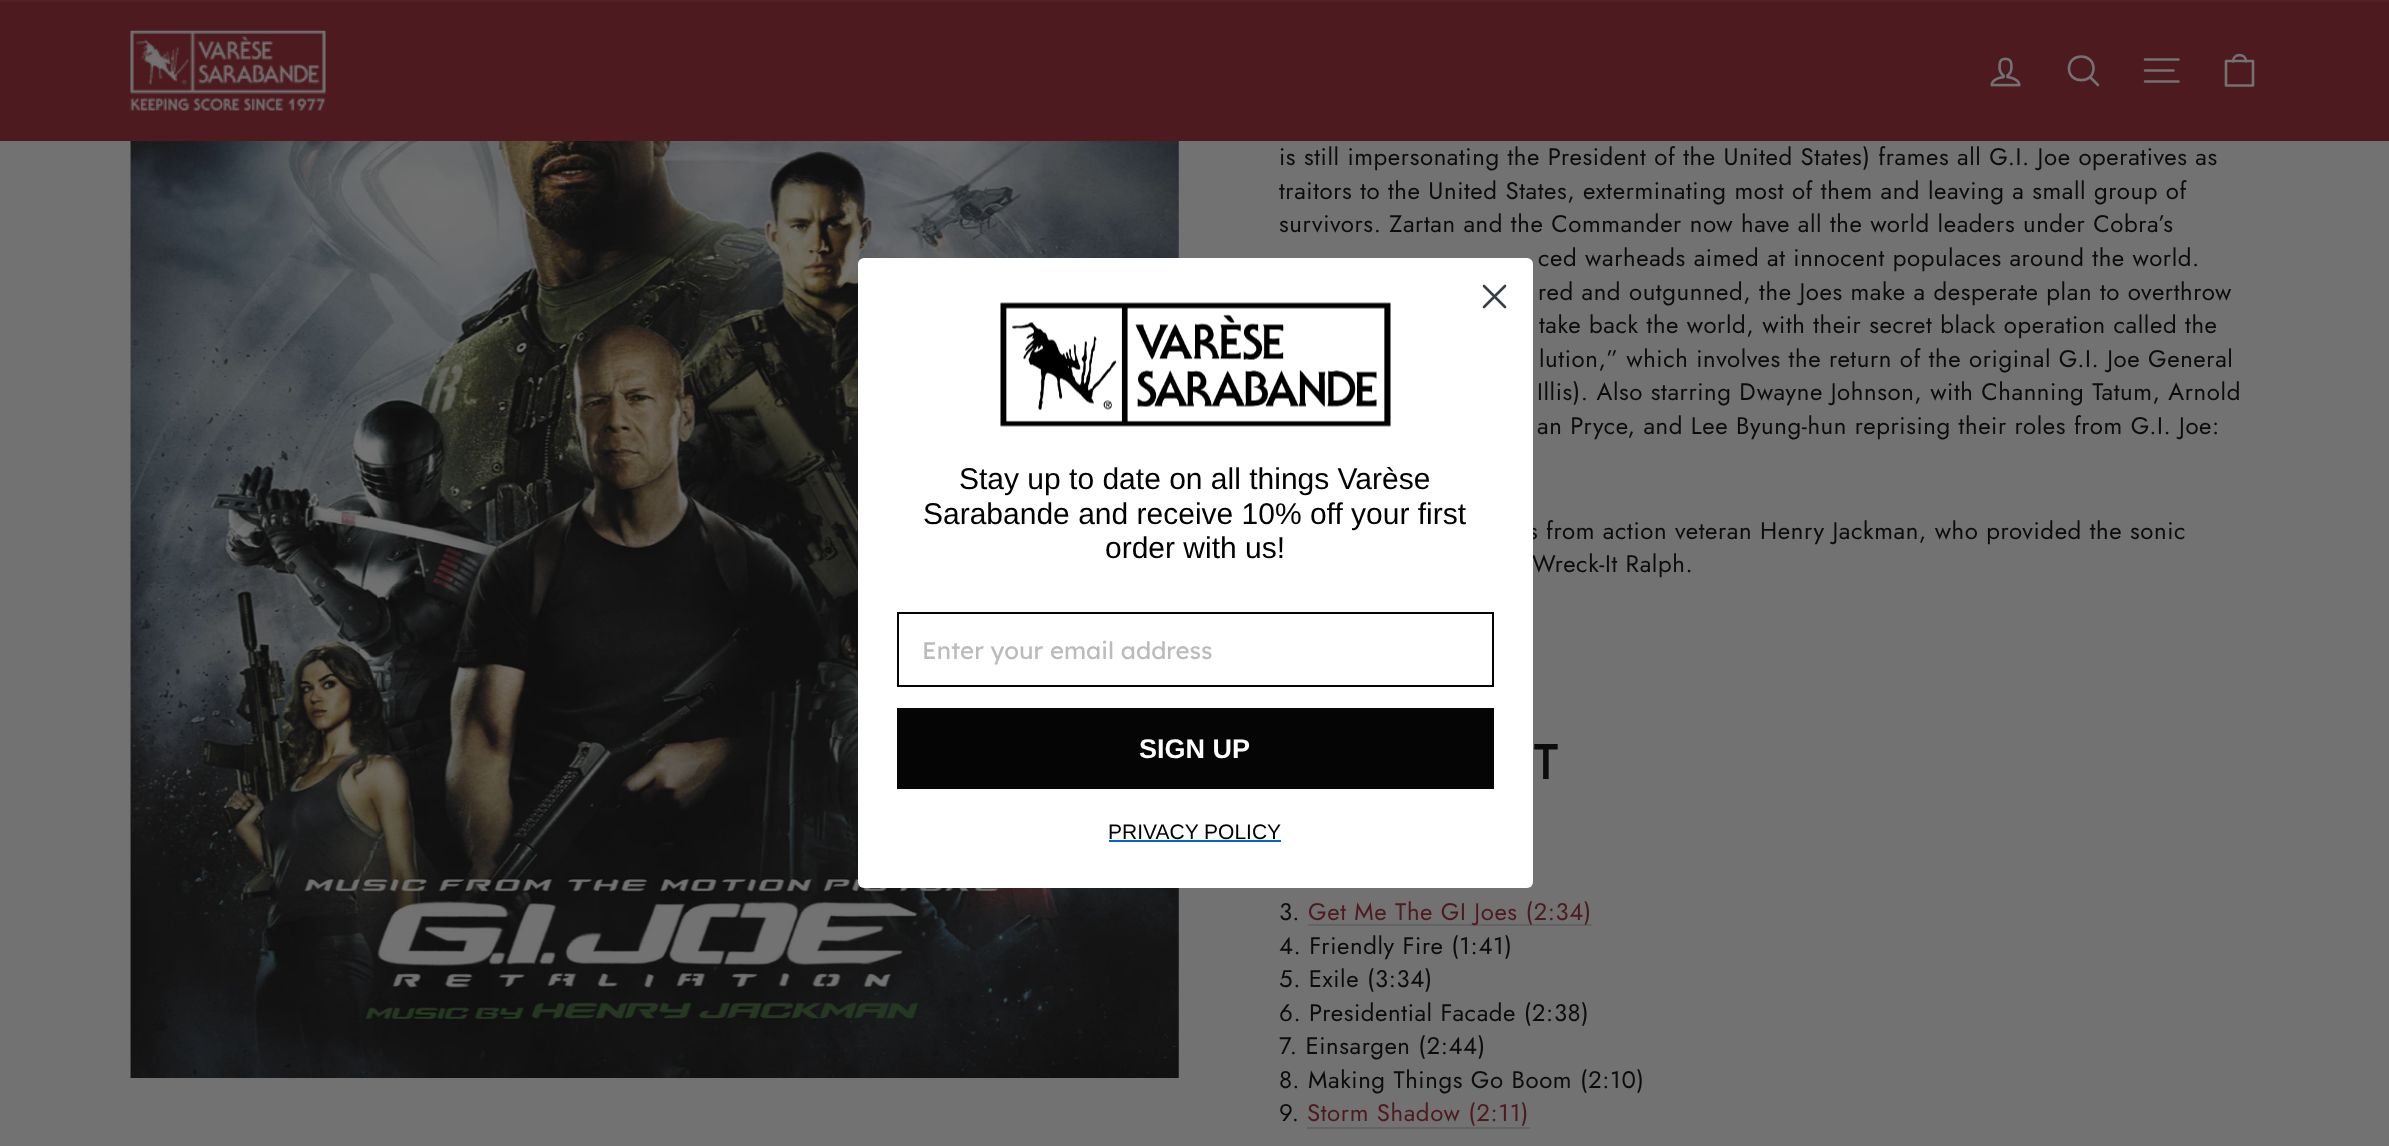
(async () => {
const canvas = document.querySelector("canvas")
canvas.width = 2389
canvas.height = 1146
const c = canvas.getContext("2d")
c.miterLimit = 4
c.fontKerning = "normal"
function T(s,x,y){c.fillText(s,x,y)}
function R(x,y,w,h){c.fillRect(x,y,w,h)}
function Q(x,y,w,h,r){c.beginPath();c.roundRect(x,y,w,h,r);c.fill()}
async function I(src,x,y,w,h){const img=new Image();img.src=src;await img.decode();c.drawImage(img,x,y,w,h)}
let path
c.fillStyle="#727272"
R(0,0,2389,1146)
await I("4.png",130,141,1049,937)
c.letterSpacing="0.6px"
c.font="24px Jost"
c.fillStyle="#0c0c0c"
T("s from action veteran Henry Jackman, who provided the sonic",1528,539)
T("Wreck-It Ralph.",1532,572)
c.fillStyle="#fff"
Q(858,258,675,630,6)
path = new Path2D("M1484 286l21 21m-21 0l21-21z")
c.strokeStyle="#373f47"
c.lineWidth=2.6
c.lineCap="round"
c.lineJoin="round"
c.stroke(path)
await I("1.png",1000,302,391,125)
c.letterSpacing="0px"
c.font="30px Liberation Sans"
c.fillStyle="#000"
T("Stay up to date on all things Varèse",959,489)
T("Sarabande and receive 10% off your first",923,524)
T("order with us!",1105,558)
c.strokeStyle="#050505"
c.lineWidth=2
c.lineJoin="miter"
c.strokeRect(898,613,595,73)
c.font="24px Lexend"
c.fillStyle="#bbb"
T("Enter your email address",922,659)
c.fillStyle="#050505"
R(897,708,597,81)
c.font="bold 27px Liberation Sans"
c.fillStyle="#fff"
T("SIGN UP",1139,758)
c.font="21px Liberation Sans"
c.fillStyle="#000"
T("PRIVACY POLICY",1108,839)
c.fillStyle="#06c"
R(1109,840,172,2)
c.fillStyle="#4d1a1f"
R(0,2,2389,139)
c.fillStyle="#502227"
R(0,0,2389,2)
await I("2.png",130,30,196,81)
await I("3.png",1990,57,31,30)
path = new Path2D("M2093.5 68.5c0 15.5-24.5 15.5-24.5 0c0-16 24.5-16 24.5 0zm4.5 16.5l-8-8")
c.strokeStyle="#727272"
c.lineWidth=2.6
c.lineJoin="round"
c.stroke(path)
path = new Path2D("M2145 59.5h33.5m-33.5 11h28.5m-28.5 11h33.5")
c.stroke(path)
path = new Path2D("M2226 61h27v24.5h-27zm7 .5c0-8.5 13-8.5 13 0")
c.stroke(path)
c.letterSpacing="0.6px"
c.font="24px Jost"
c.fillStyle="#0c0c0c"
T("is still impersonating the President of the United States) frames all G.I. Joe operatives as",1279,165)
T("traitors to the United States, exterminating most of them and leaving a small group of",1279,199)
T("survivors. Zartan and the Commander now have all the world leaders under Cobra’s",1279,232)
T("ced warheads aimed at innocent populaces around the world.",1538,266)
T("red and outgunned, the Joes make a desperate plan to overthrow",1538,300)
T("take back the world, with their secret black operation called the",1539,333)
T("lution,” which involves the return of the original G.I. Joe General",1539,367)
T("Illis). Also starring Dwayne Johnson, with Channing Tatum, Arnold",1537,400)
T("an Pryce, and Lee Byung-hun reprising their roles from G.I. Joe:",1537,434)
c.letterSpacing="2px"
c.font="600 48px Josefin Sans"
T("T",1532,779)
c.letterSpacing="0.6px"
c.font="24px Jost"
T("3.",1279,920)
c.fillStyle="#636363"
R(1308,924,284,2)
c.fillStyle="#4d1a1f"
T("Get Me The GI Joes (2:34)",1308,920)
c.fillStyle="#0c0c0c"
T("4. Friendly Fire (1:41)",1279,954)
T("5. Exile (3:34)",1279,987)
T("6. Presidential Facade (2:38)",1279,1021)
T("7. Einsargen (2:44)",1279,1054)
T("8. Making Things Go Boom (2:10)",1279,1088)
T("9.",1279,1121)
c.fillStyle="#4d1a1f"
T("Storm Shadow (2:11)",1307,1121)
c.fillStyle="#636363"
R(1307,1127,223,2)
})()
